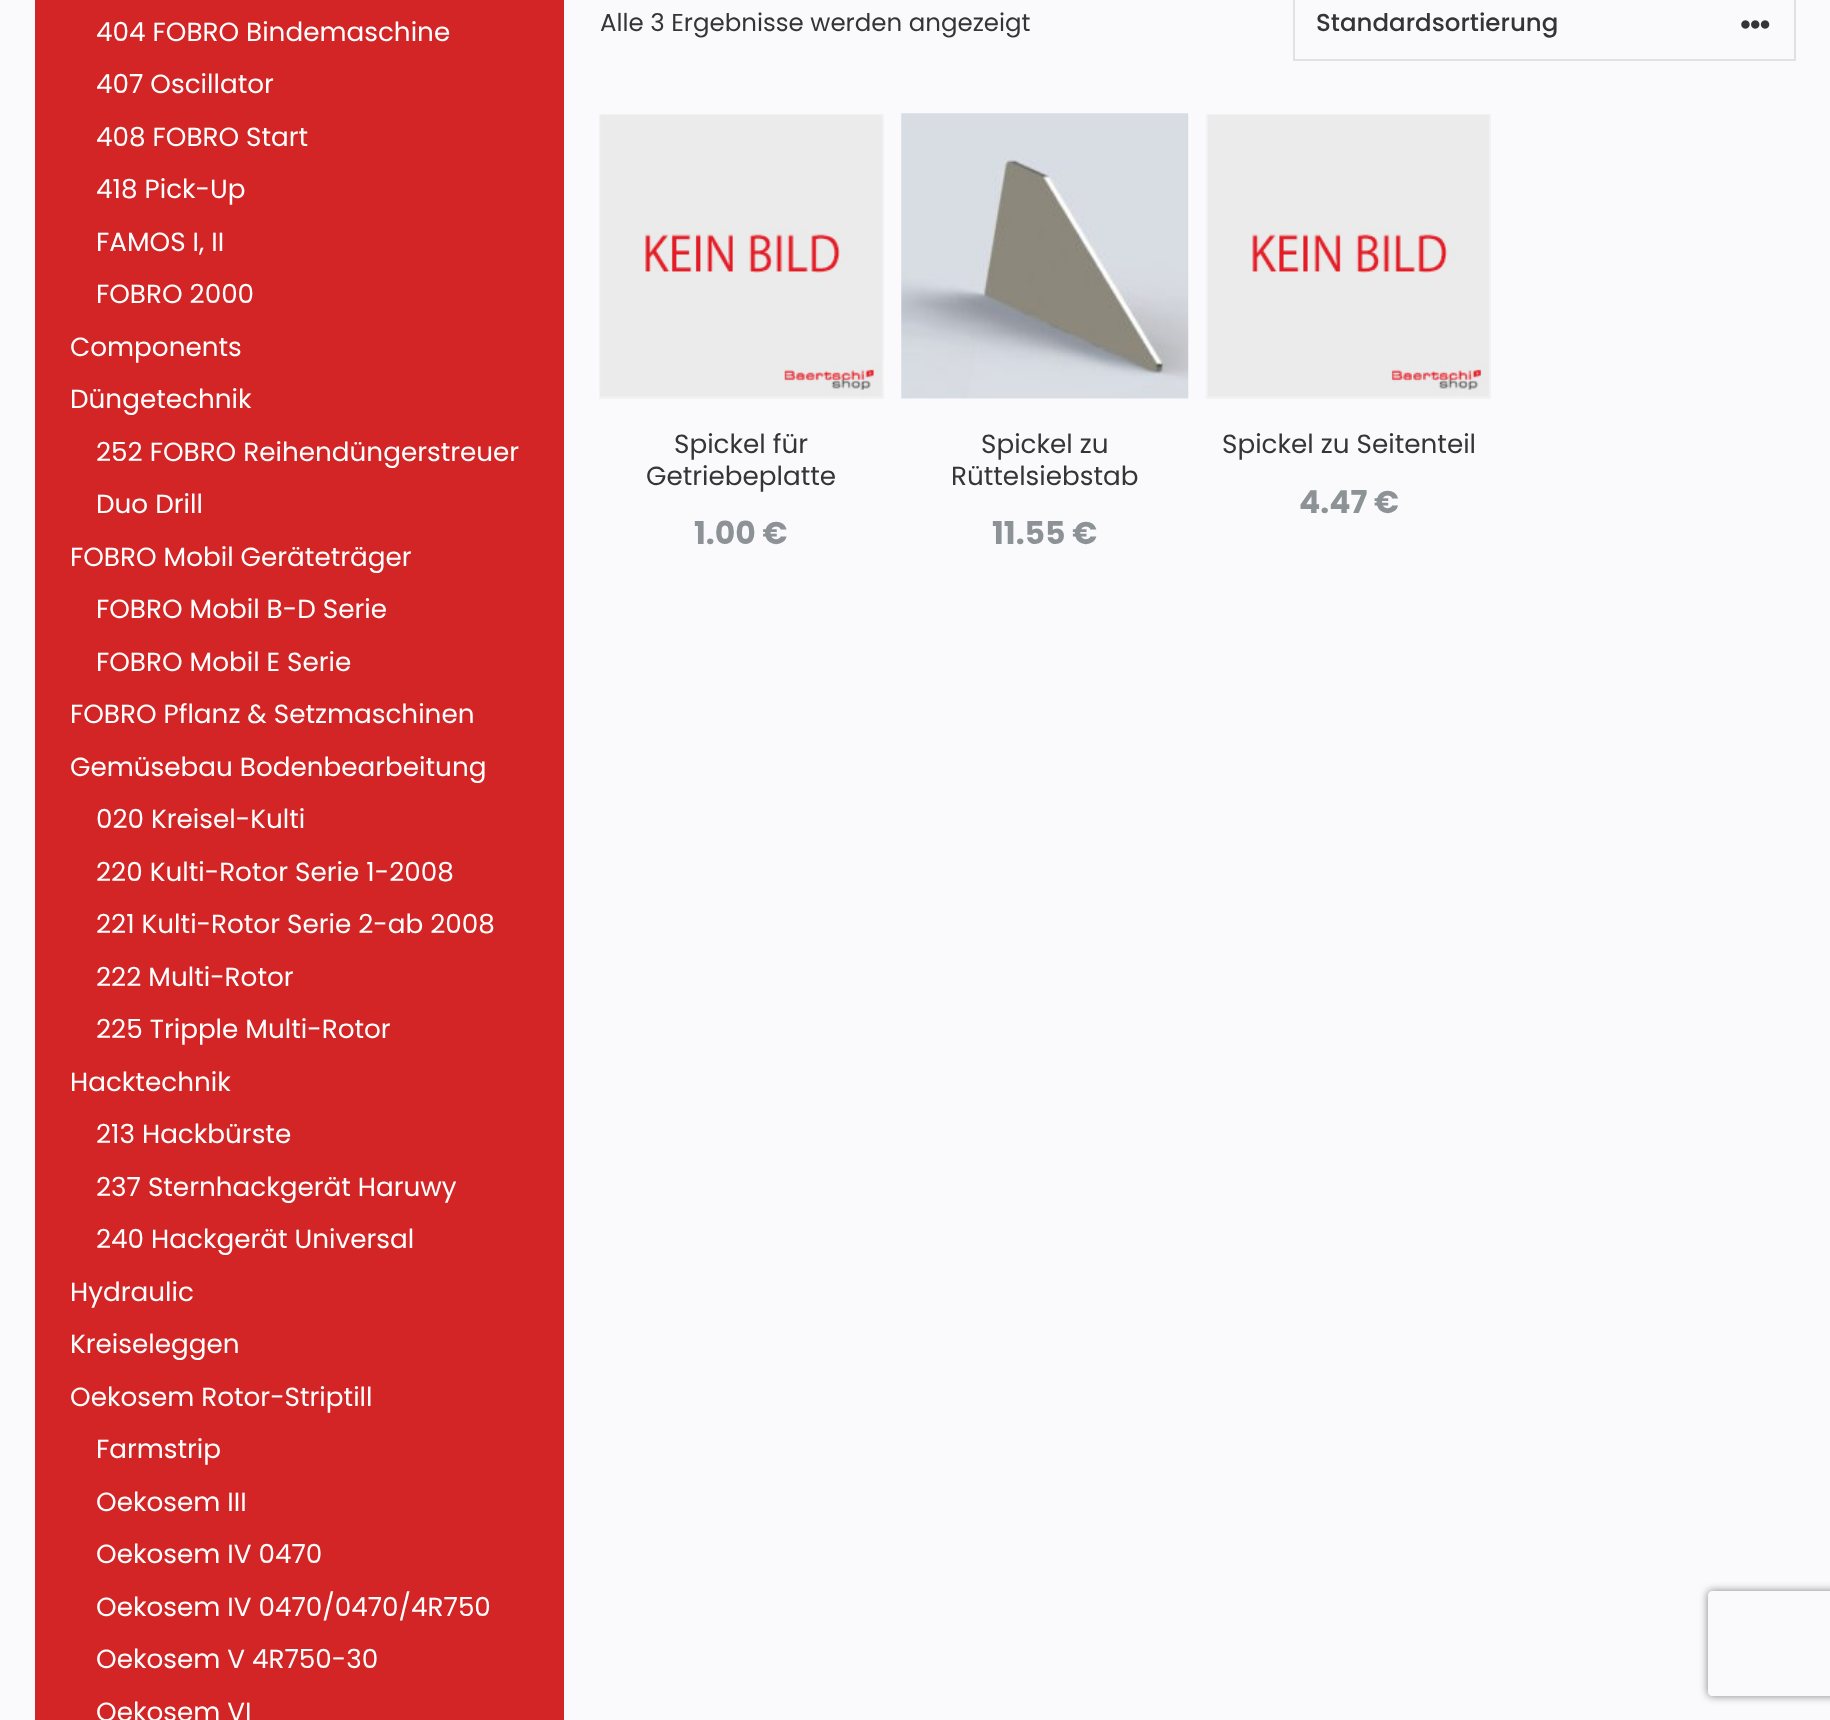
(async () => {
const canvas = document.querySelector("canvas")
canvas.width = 1830
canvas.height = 1720
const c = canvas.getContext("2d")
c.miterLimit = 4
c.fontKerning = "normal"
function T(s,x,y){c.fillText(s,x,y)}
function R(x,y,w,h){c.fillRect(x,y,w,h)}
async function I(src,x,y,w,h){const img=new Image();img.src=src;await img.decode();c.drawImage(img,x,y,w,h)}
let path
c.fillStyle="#fafafc"
R(0,0,1830,1720)
c.fillStyle="#d32525"
R(35,0,529,1720)
c.font="26.25px Poppins"
c.fillStyle="#fff"
T("404 FOBRO Bindemaschine",96,41)
T("407 Oscillator",96,93)
T("408 FOBRO Start",96,146)
T("418 Pick-Up",96,198)
T("FAMOS I, II",96,251)
T("FOBRO 2000",96,303)
T("Components",70,356)
T("Düngetechnik",70,408)
T("252 FOBRO Reihendüngerstreuer",96,461)
T("Duo Drill",96,513)
T("FOBRO Mobil Geräteträger",70,566)
T("FOBRO Mobil B-D Serie",96,618)
T("FOBRO Mobil E Serie",96,671)
T("FOBRO Pflanz & Setzmaschinen",70,723)
T("Gemüsebau Bodenbearbeitung",70,776)
T("020 Kreisel-Kulti",96,828)
T("220 Kulti-Rotor Serie 1-2008",96,881)
T("221 Kulti-Rotor Serie 2-ab 2008",96,933)
T("222 Multi-Rotor",96,986)
T("225 Tripple Multi-Rotor",96,1038)
T("Hacktechnik",70,1091)
T("213 Hackbürste",96,1143)
T("237 Sternhackgerät Haruwy",96,1196)
T("240 Hackgerät Universal",96,1248)
T("Hydraulic",70,1301)
T("Kreiseleggen",70,1353)
T("Oekosem Rotor-Striptill",70,1406)
T("Farmstrip",96,1458)
T("Oekosem III",96,1511)
T("Oekosem IV 0470",96,1563)
T("Oekosem IV 0470/0470/4R750",96,1616)
T("Oekosem V 4R750-30",96,1668)
T("Oekosem VI",96,1721)
c.font="24.5px Poppins"
c.fillStyle="#353535"
T("Alle 3 Ergebnisse werden angezeigt",600,31)
c.strokeStyle="#e1e1e3"
c.lineWidth=2
c.strokeRect(1294,-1,501,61)
c.font="500 24.5px Poppins"
T("Standardsortierung",1316,31)
await I("1.png",1741,20,29,9)
c.strokeStyle="#f2f2f2"
c.strokeRect(600,115,283,283)
await I("2.png",600,115,282,282)
c.font="26.25px Poppins"
T("Spickel für",674,453)
T("Getriebeplatte",646,485)
c.font="bold 31.5px Poppins"
c.fillStyle="#8d9297"
T("1.00 €",694,544)
await I("3.png",901,113,288,286)
c.font="26.25px Poppins"
c.fillStyle="#353535"
T("Spickel zu",981,453)
T("Rüttelsiebstab",951,485)
c.font="bold 31.5px Poppins"
c.fillStyle="#8d9297"
T("11.55 €",992,544)
c.strokeRect(1207,115,283,283)
await I("4.png",1208,115,281,282)
c.font="26.25px Poppins"
c.fillStyle="#353535"
T("Spickel zu Seitenteil",1222,453)
c.font="bold 31.5px Poppins"
c.fillStyle="#8d9297"
T("4.47 €",1299,513)
c.save()
path = new Path2D("M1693 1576h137v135h-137zm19 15h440c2 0 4 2 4 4v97c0 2-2 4-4 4h-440c-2 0-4-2-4-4v-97c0-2 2-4 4-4z")
c.clip(path,"evenodd")
c.fillStyle="#808080"
c.filter="blur(4.5px)"
c.beginPath()
c.roundRect(1708,1591,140,105,4)
c.fill()
c.filter="none"
c.restore()
})()
